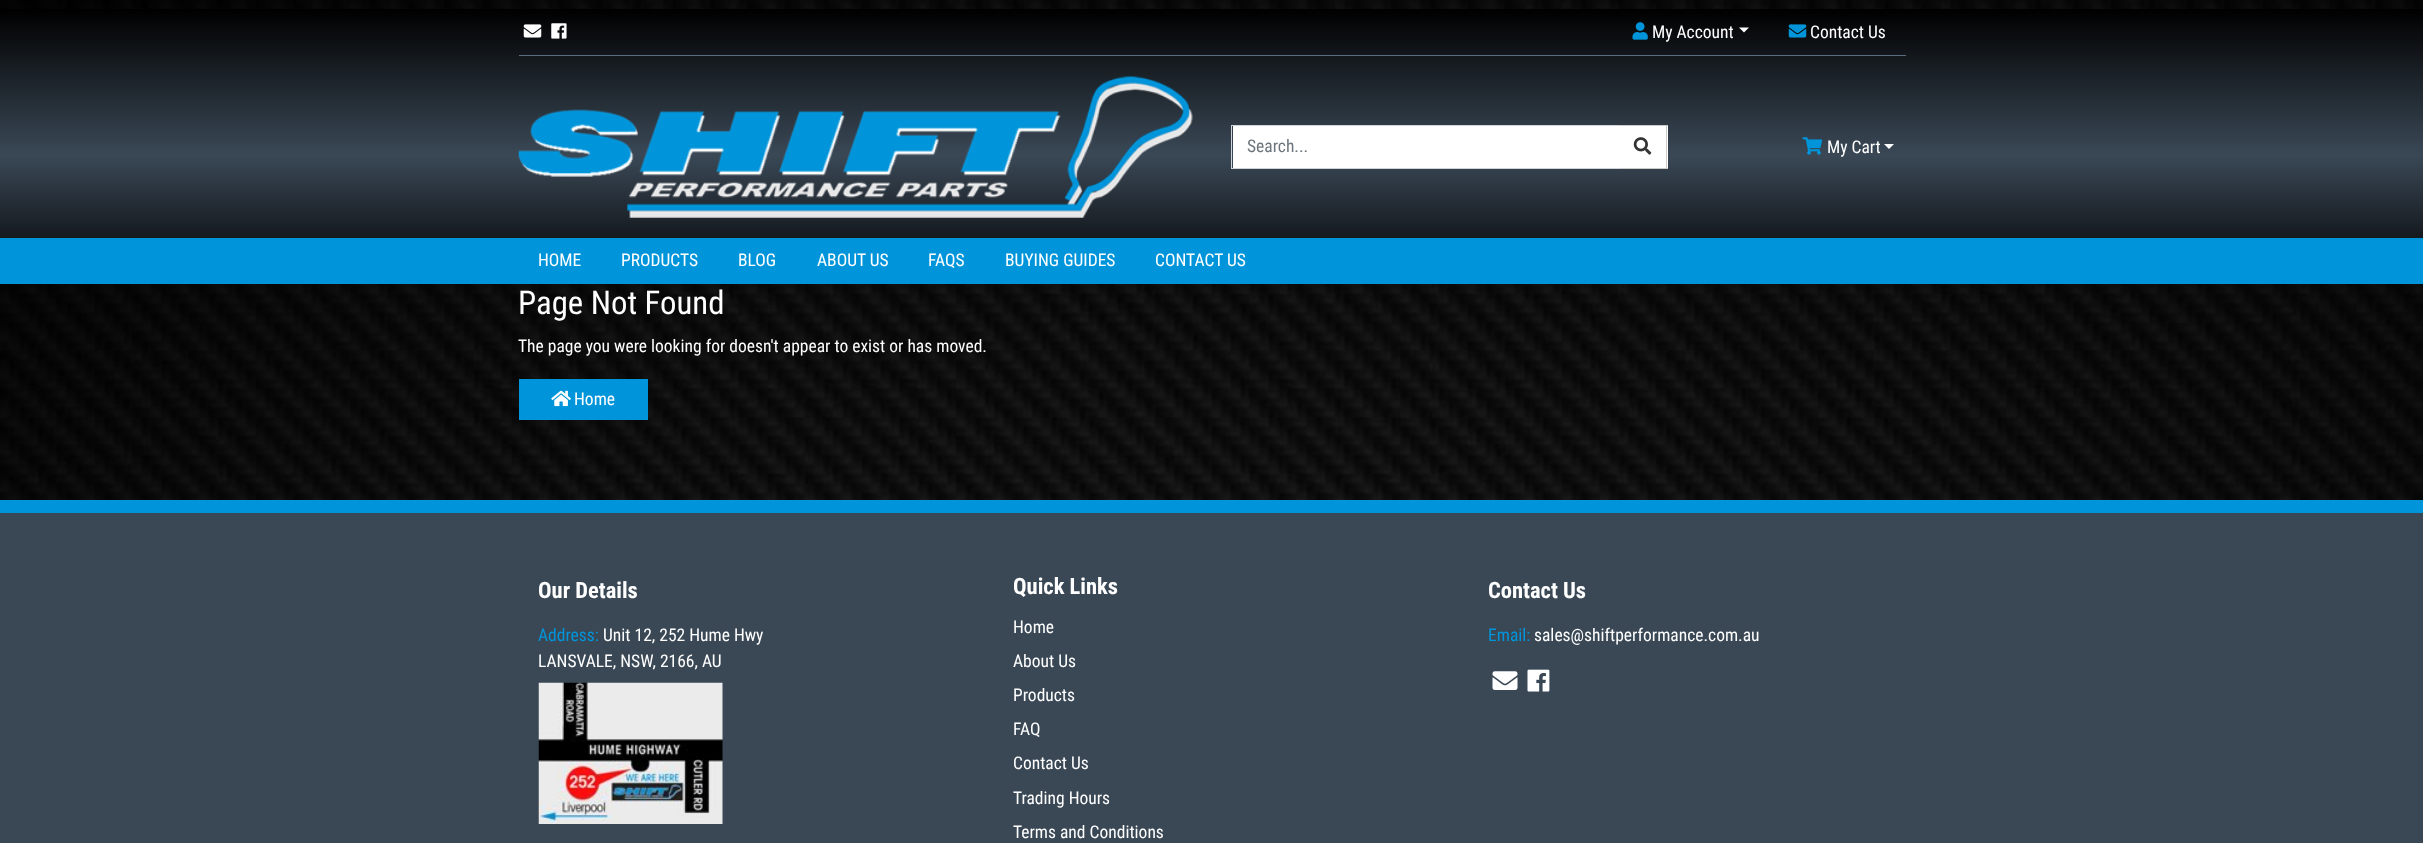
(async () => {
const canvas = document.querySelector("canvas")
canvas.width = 2423
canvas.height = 843
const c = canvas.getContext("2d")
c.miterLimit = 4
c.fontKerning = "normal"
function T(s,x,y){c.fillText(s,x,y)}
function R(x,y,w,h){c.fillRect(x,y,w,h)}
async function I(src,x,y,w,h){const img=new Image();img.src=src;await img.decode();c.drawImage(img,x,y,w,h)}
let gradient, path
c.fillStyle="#fff"
R(0,0,2423,843)
await I("1.png",0,0,2423,500)
gradient = c.createLinearGradient(1212,284,1212,9)
gradient.addColorStop(0,"#000")
gradient.addColorStop(.47,"#3a4856")
gradient.addColorStop(1,"#000")
c.fillStyle = gradient
R(0,9,2423,229)
await I("2.png",523,24,19,14)
await I("3.png",551,23,16,16)
await I("4.png",1632,22,16,18)
c.font="17.5px Roboto Condensed"
c.fillStyle="#fff"
T("My Account",1652,38)
path = new Path2D("M1739 27.5h10l-5 5z")
c.fill(path)
await I("5.png",1788,24,19,14)
T("Contact Us",1810,38)
c.fillStyle="#5b6e80"
R(519,55,1387,1)
await I("6.png",518,76,675,142)
c.fillStyle="#fff"
R(1233,126,386,42)
c.strokeStyle="#ced4da"
c.strokeRect(1231.5,125.5,388,43)
c.fillStyle="#6c757d"
T("Search...",1247,152)
c.fillStyle="#fff"
R(1619,126,49,42)
c.fillStyle="#ccc"
R(1619,125,49,1)
R(1666,125,1,44)
R(1619,168,49,1)
await I("7.png",1633,137,19,18)
await I("8.png",1802,137,21,18)
c.fillStyle="#fff"
T("My Cart",1827,153)
path = new Path2D("M1884 144h10l-5 5z")
c.fill(path)
c.fillStyle="#0095da"
R(0,238,2423,46)
c.fillStyle="#fff"
T("HOME",538,266)
T("PRODUCTS",621,266)
T("BLOG",738,266)
T("ABOUT US",817,266)
T("FAQS",928,266)
T("BUYING GUIDES",1005,266)
T("CONTACT US",1155,266)
c.font="32.75px Roboto Condensed"
T("Page Not Found",518,314)
c.font="17.5px Roboto Condensed"
T("The page you were looking for doesn't appear to exist or has moved.",518,352)
c.fillStyle="#0095da"
R(519,379,129,41)
await I("9.png",551,390,20,17)
c.fillStyle="#fff"
T("Home",574,405)
c.fillStyle="#3a4856"
R(0,513,2423,330)
c.fillStyle="#0095da"
R(0,500,2423,13)
c.font="bold 22.5px Roboto Condensed"
c.fillStyle="#fff"
T("Our Details",538,598)
c.font="17.5px Roboto Condensed"
c.fillStyle="#0095da"
T("Address:",538,641)
c.fillStyle="#fff"
T("Unit 12, 252 Hume Hwy",603,641)
T("LANSVALE, NSW, 2166, AU",538,667)
await I("10.png",538,682,185,142)
c.font="bold 22.5px Roboto Condensed"
T("Quick Links",1013,594)
c.font="17.5px Roboto Condensed"
T("Home",1013,633)
T("About Us",1013,667)
T("Products",1013,701)
T("FAQ",1013,735)
T("Contact Us",1013,769)
T("Trading Hours",1013,804)
T("Terms and Conditions",1013,838)
c.font="bold 22.5px Roboto Condensed"
T("Contact Us",1488,598)
c.font="17.5px Roboto Condensed"
c.fillStyle="#0095da"
T("Email:",1488,641)
c.fillStyle="#fff"
T("sales@shiftperformance.com.au",1534,641)
await I("11.png",1492,671,26,19)
await I("12.png",1527,669,23,23)
})()
